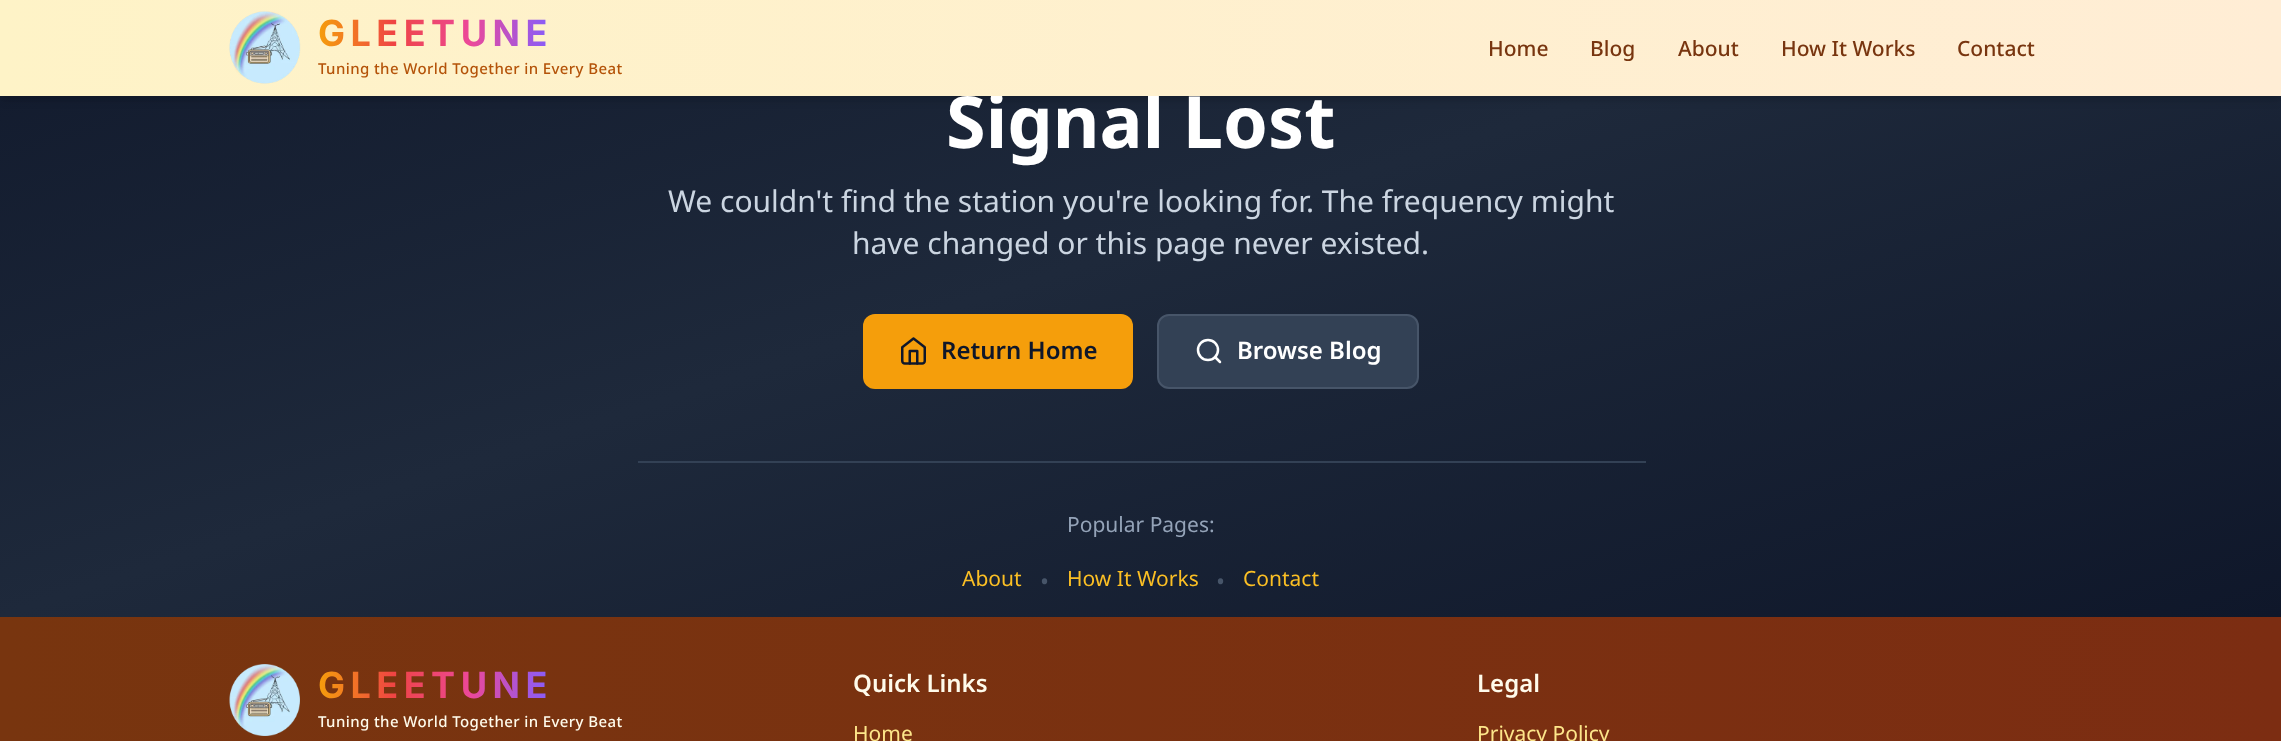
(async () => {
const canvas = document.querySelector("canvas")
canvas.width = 2281
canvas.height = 741
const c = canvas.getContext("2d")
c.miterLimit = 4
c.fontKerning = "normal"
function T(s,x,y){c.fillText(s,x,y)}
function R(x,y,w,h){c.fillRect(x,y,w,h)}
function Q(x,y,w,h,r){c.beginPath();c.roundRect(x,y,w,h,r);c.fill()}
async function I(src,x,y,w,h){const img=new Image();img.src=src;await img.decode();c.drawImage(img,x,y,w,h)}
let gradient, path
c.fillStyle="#fff"
R(0,0,2281,741)
gradient = c.createLinearGradient(923,-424,1358,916)
gradient.addColorStop(0,"#0f172a")
gradient.addColorStop(.5,"#1e293b")
gradient.addColorStop(1,"#0f172a")
c.fillStyle = gradient
R(0,96,2281,521)
c.fillStyle="#0000001a"
c.filter="blur(3px)"
c.beginPath()
c.rect(3,6,2276,90)
c.fill()
c.filter="none"
c.filter="blur(4.5px)"
c.beginPath()
c.rect(2,8,2278,93)
c.fill()
c.filter="none"
c.font="bold 72px Noto Sans"
c.fillStyle="#fff"
T("Signal Lost",946,148)
gradient = c.createLinearGradient(0,48,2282,48)
gradient.addColorStop(0,"#fef3c7")
gradient.addColorStop(1,"#ffedd5")
c.fillStyle = gradient
R(0,0,2281,96)
await I("1.png",229,11,72,73)
c.letterSpacing="5.5px"
c.font="bold 36px Inter"
gradient = c.createLinearGradient(318,34,622,34)
gradient.addColorStop(0,"#f59e0b")
gradient.addColorStop(.25,"#ef4444")
gradient.addColorStop(.5,"#ec4899")
gradient.addColorStop(.75,"#8b5cf6")
gradient.addColorStop(1,"#3b82f6")
c.fillStyle = gradient
T("GLEETUNE",318,46)
c.letterSpacing="0.4px"
c.font="500 15px Noto Sans"
c.fillStyle="#b45309"
T("Tuning the World Together in Every Beat",318,74)
c.letterSpacing="0px"
c.font="500 21px Noto Sans"
c.fillStyle="#78350f"
T("Home",1488,56)
T("Blog",1590,56)
T("About",1678,56)
T("How It Works",1781,56)
T("Contact",1957,56)
c.font="30px Noto Sans"
c.fillStyle="#cbd5e1"
T("We couldn't find the station you're looking for. The frequency might",668,212)
T("have changed or this page never existed.",852,254)
c.fillStyle="#f59e0b"
Q(863,314,270,75,12)
await I("2.png",901,337,25,28)
c.font="600 24px Noto Sans"
c.fillStyle="#0f172a"
T("Return Home",941,359)
c.fillStyle="#334155"
c.beginPath()
c.roundRect(1158,315,260,73,11)
c.fill()
c.strokeStyle="#475569"
c.lineWidth=2
c.stroke()
c.beginPath()
c.arc(1208,350,10,0,7)
c.strokeStyle="#fff"
c.lineWidth=2.5
c.stroke()
path = new Path2D("M1220 362l-5-5")
c.lineCap="round"
c.lineJoin="round"
c.stroke(path)
c.fillStyle="#fff"
T("Browse Blog",1237,359)
c.fillStyle="#334155"
R(638,461,1008,2)
c.font="21px Noto Sans"
c.fillStyle="#94a3b8"
T("Popular Pages:",1067,532)
c.fillStyle="#fbbf24"
T("About",962,586)
c.font="24px Noto Sans"
c.fillStyle="#475569"
T("•",1040,590)
c.font="21px Noto Sans"
c.fillStyle="#fbbf24"
T("How It Works",1067,586)
c.font="24px Noto Sans"
c.fillStyle="#475569"
T("•",1216,590)
c.font="21px Noto Sans"
c.fillStyle="#fbbf24"
T("Contact",1243,586)
gradient = c.createLinearGradient(0,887,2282,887)
gradient.addColorStop(0,"#78350f")
gradient.addColorStop(1,"#7c2d12")
c.fillStyle = gradient
R(0,617,2281,124)
await I("3.png",229,664,71,72)
c.letterSpacing="5.5px"
c.font="bold 36px Inter"
gradient = c.createLinearGradient(318,686,622,686)
gradient.addColorStop(0,"#f59e0b")
gradient.addColorStop(.25,"#ef4444")
gradient.addColorStop(.5,"#ec4899")
gradient.addColorStop(.75,"#8b5cf6")
gradient.addColorStop(1,"#3b82f6")
c.fillStyle = gradient
T("GLEETUNE",318,698)
c.letterSpacing="0.4px"
c.font="500 15px Noto Sans"
c.fillStyle="#fffbeb"
T("Tuning the World Together in Every Beat",318,727)
c.letterSpacing="0px"
c.font="600 24px Noto Sans"
T("Quick Links",853,692)
c.font="21px Noto Sans"
c.fillStyle="#fde68a"
T("Home",853,741)
c.font="600 24px Noto Sans"
c.fillStyle="#fffbeb"
T("Legal",1477,692)
c.font="21px Noto Sans"
c.fillStyle="#fde68a"
T("Privacy Policy",1477,741)
})()
